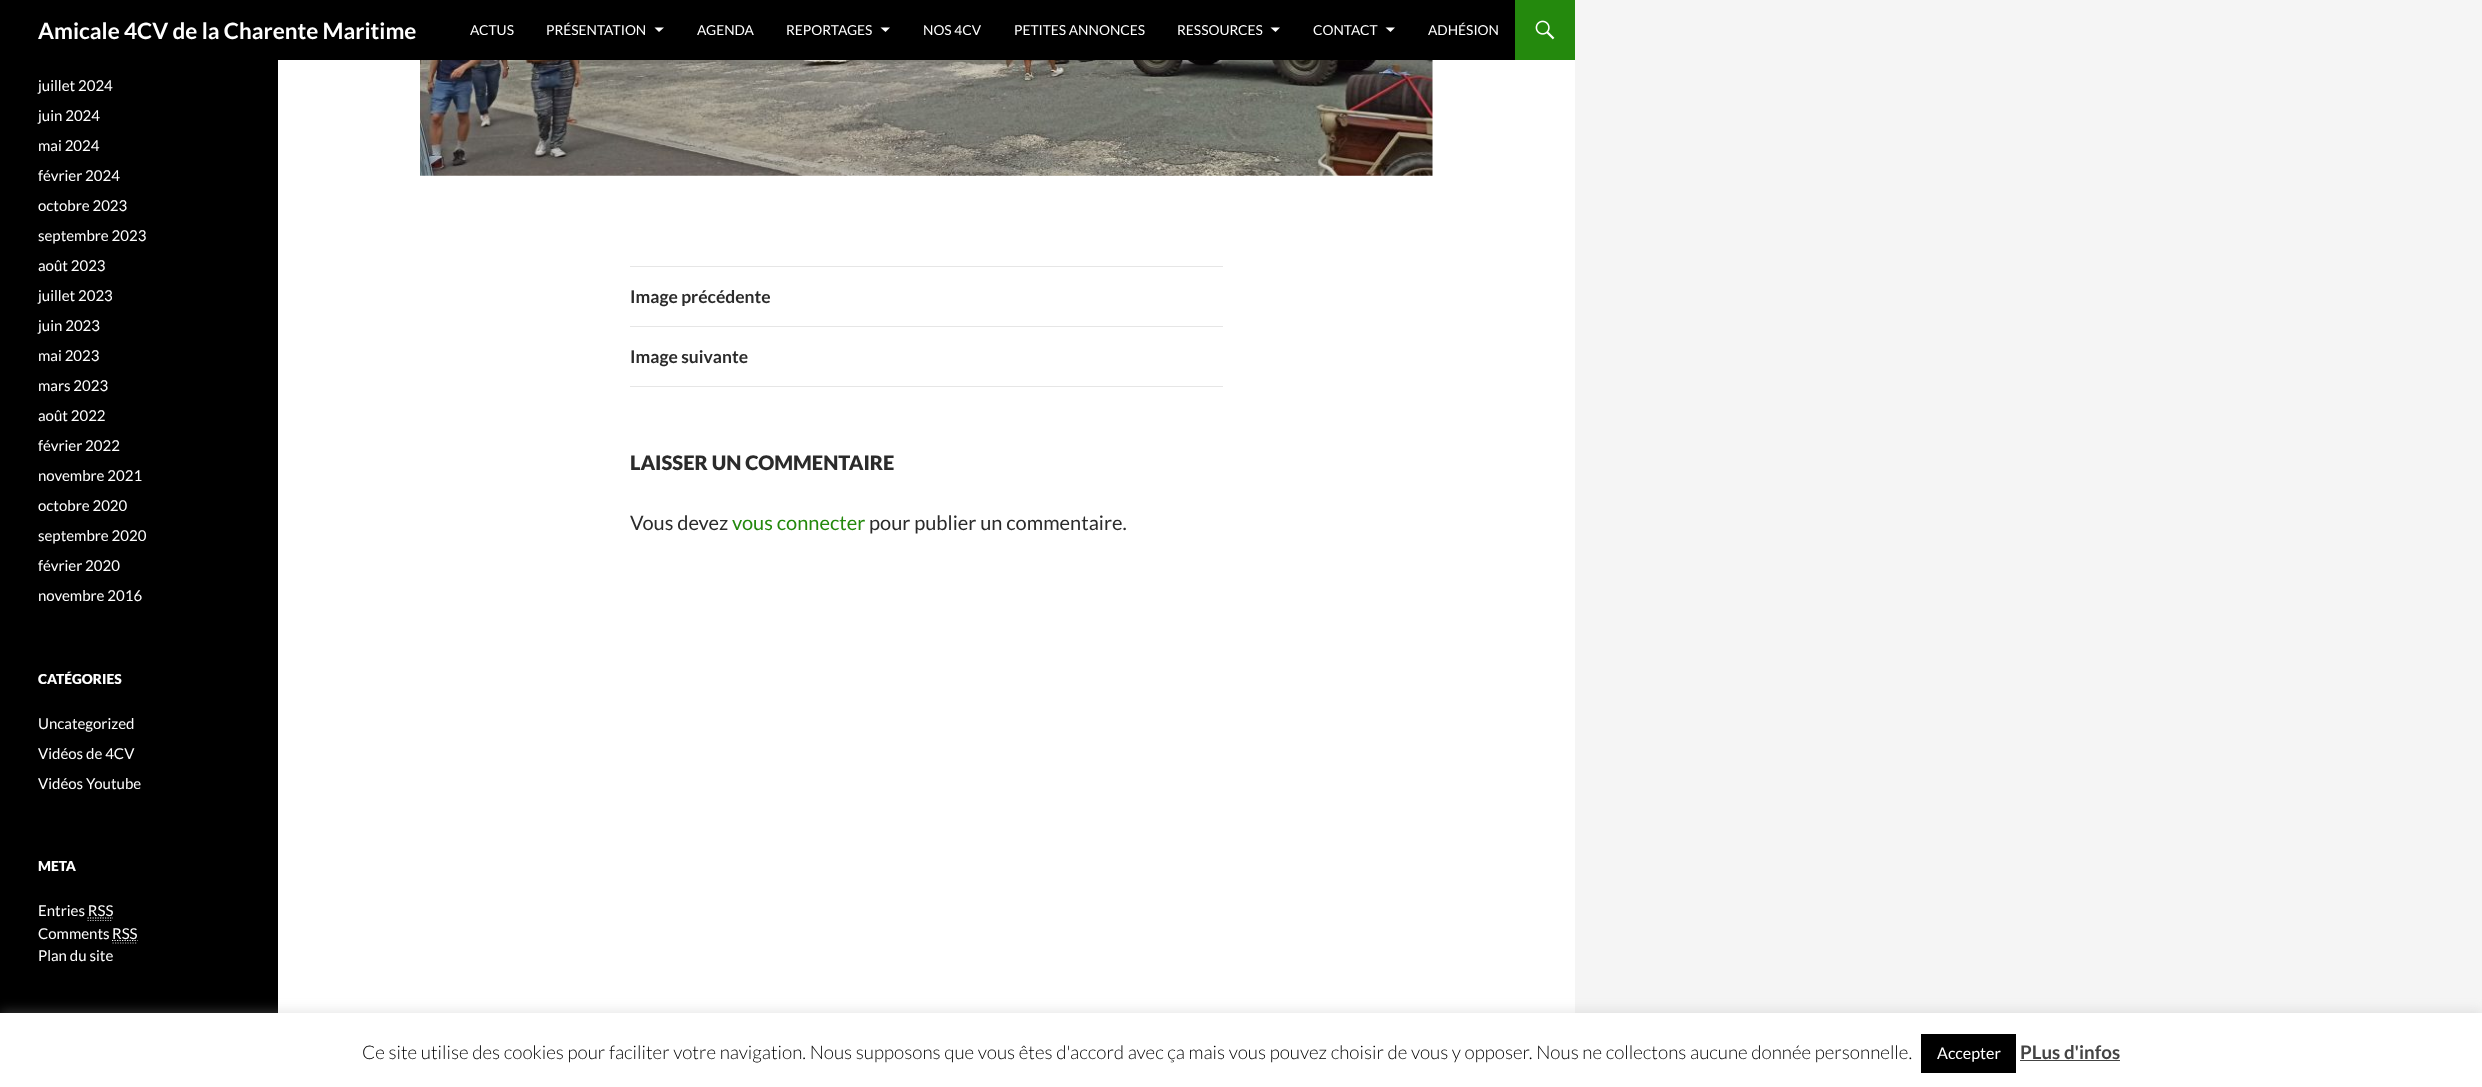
(async () => {
const canvas = document.querySelector("canvas")
canvas.width = 2482
canvas.height = 1087
const c = canvas.getContext("2d")
c.miterLimit = 4
c.fontKerning = "normal"
function T(s,x,y){c.fillText(s,x,y)}
function R(x,y,w,h){c.fillRect(x,y,w,h)}
async function I(src,x,y,w,h){const img=new Image();img.src=src;await img.decode();c.drawImage(img,x,y,w,h)}
let path
c.fillStyle="#f5f5f5"
R(0,0,2482,1087)
c.fillStyle="#fff"
R(278,60,1297,953)
c.fillStyle="#000"
R(0,0,1515,60)
c.font="bold 22.5px Lato"
c.fillStyle="#fff"
T("Amicale 4CV de la Charente Maritime",38,39)
c.font="13.75px Lato"
T("ACTUS",470,35)
T("PRÉSENTATION",546,35)
path = new Path2D("M654.5 27.5l4.5 4.5l5-4.5z")
c.fill(path)
T("AGENDA",697,35)
T("REPORTAGES",786,35)
path = new Path2D("M880.5 27.5l5 4.5l4.5-4.5z")
c.fill(path)
T("NOS 4CV",923,35)
T("PETITES ANNONCES",1014,35)
T("RESSOURCES",1177,35)
path = new Path2D("M1270.5 27.5l5 4.5l4.5-4.5z")
c.fill(path)
T("CONTACT",1313,35)
path = new Path2D("M1385.5 27.5l5 4.5l4.5-4.5z")
c.fill(path)
T("ADHÉSION",1428,35)
c.fillStyle="#24890d"
R(1515,0,60,60)
await I("1.png",1535,20,20,20)
c.fillStyle="#000"
R(0,60,278,953)
c.font="15px Lato"
c.fillStyle="#fff"
T("juillet 2024",38,91)
T("juin 2024",38,121)
T("mai 2024",38,151)
T("février 2024",38,181)
T("octobre 2023",38,211)
T("septembre 2023",38,241)
T("août 2023",38,271)
T("juillet 2023",38,301)
T("juin 2023",38,331)
T("mai 2023",38,361)
T("mars 2023",38,391)
T("août 2022",38,421)
T("février 2022",38,451)
T("novembre 2021",38,481)
T("octobre 2020",38,511)
T("septembre 2020",38,541)
T("février 2020",38,571)
T("novembre 2016",38,601)
c.font="900 13.75px Lato"
T("CATÉGORIES",38,684)
c.font="15px Lato"
T("Uncategorized",38,729)
T("Vidéos de 4CV",38,759)
T("Vidéos Youtube",38,789)
c.font="900 13.75px Lato"
T("META",38,871)
c.font="15px Lato"
T("Entries RSS",38,916)
path = new Path2D("M87.5 920.5h25")
c.strokeStyle="#b3b3b3"
c.lineWidth=1.2
c.setLineDash([1.25,1.25])
c.stroke(path)
path = new Path2D("M87.5 918h25.5")
c.strokeStyle="#fff"
c.stroke(path)
T("Comments",38,939)
path = new Path2D("M112 940.5h25.5")
c.stroke(path)
T("RSS",112,939)
path = new Path2D("M112.5 943h25")
c.strokeStyle="#b3b3b3"
c.stroke(path)
T("Plan du site",38,961)
await I("2.png",420,60,1013,116)
c.fillStyle="#e6e6e6"
R(630,266,593,1)
R(630,326,593,1)
c.font="bold 17.5px Lato"
c.fillStyle="#2b2b2b"
T("Image précédente",630,303)
c.fillStyle="#e6e6e6"
R(630,386,593,1)
c.fillStyle="#2b2b2b"
T("Image suivante",630,363)
c.font="900 20px Lato"
T("LAISSER UN COMMENTAIRE",630,470)
c.font="20px Lato"
T("Vous devez",630,530)
c.fillStyle="#24890d"
T("vous connecter",732,530)
c.fillStyle="#2b2b2b"
T("pour publier un commentaire.",869,530)
c.fillStyle="#acabab4d"
c.filter="blur(6px)"
c.beginPath()
c.rect(0,1011,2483,75)
c.fill()
c.filter="none"
c.fillStyle="#fff"
R(0,1013,2482,74)
c.font="300 18.75px Lato"
c.fillStyle="#000"
T("Ce site utilise des cookies pour faciliter votre navigation. Nous supposons que vous êtes d'accord avec ça mais vous pouvez choisir de vous y opposer. Nous ne collectons aucune donnée personnelle.",362,1059)
R(1921,1034,95,39)
c.font="16px Lato"
c.fillStyle="#fff"
T("Accepter",1937,1059)
c.font="bold 18.75px Lato"
c.fillStyle="#444"
T("PLus d'infos",2020,1059)
R(2020,1060,100,1)
})()
